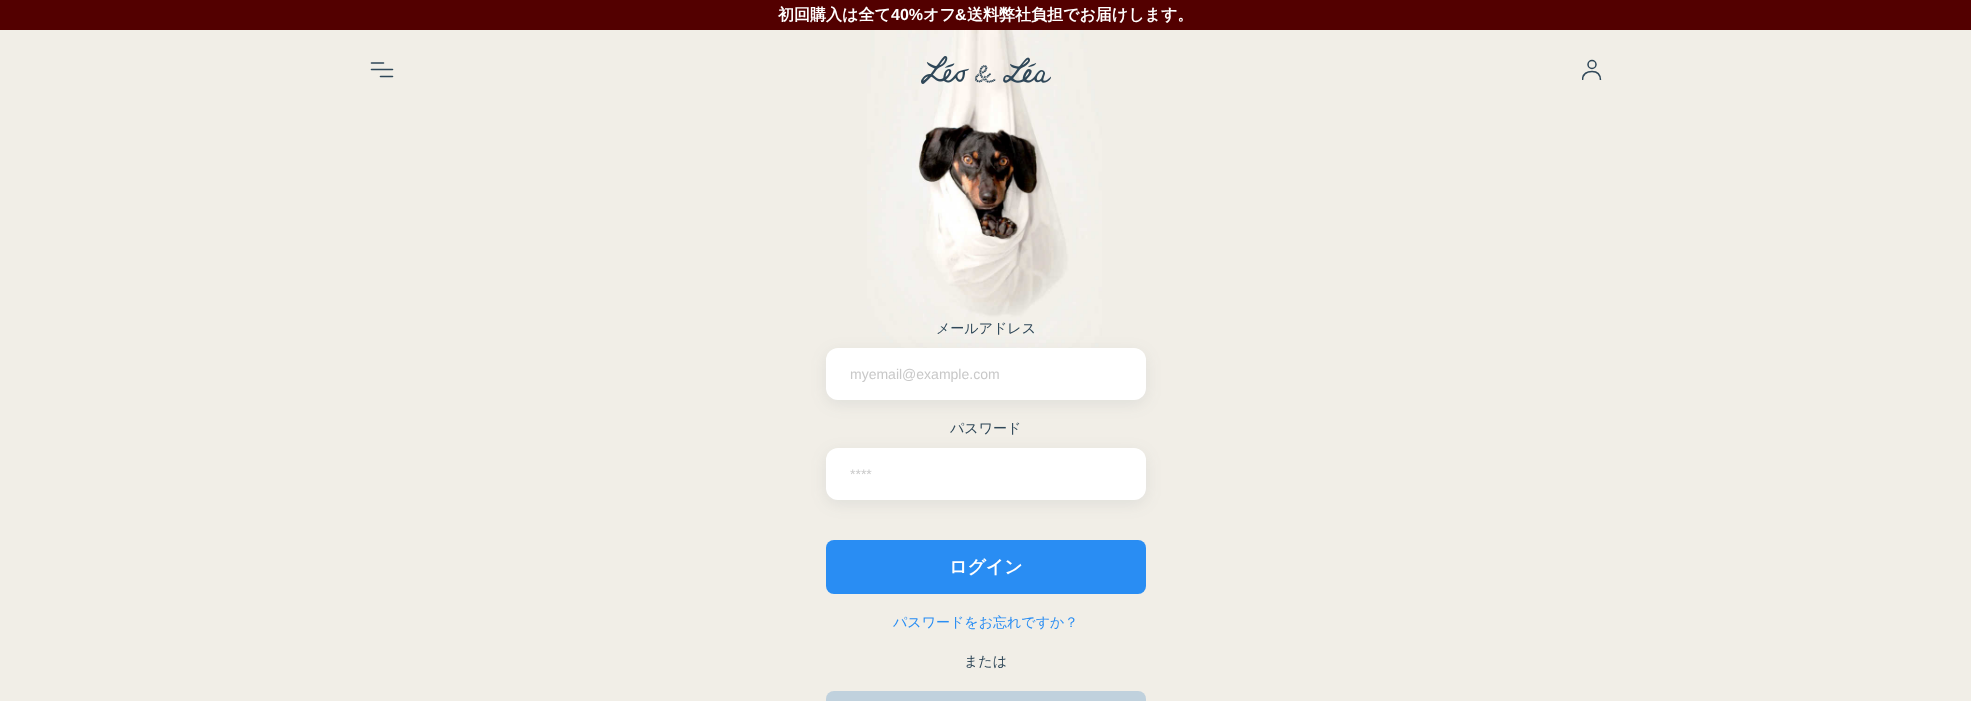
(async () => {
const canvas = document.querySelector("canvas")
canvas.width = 1971
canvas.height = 701
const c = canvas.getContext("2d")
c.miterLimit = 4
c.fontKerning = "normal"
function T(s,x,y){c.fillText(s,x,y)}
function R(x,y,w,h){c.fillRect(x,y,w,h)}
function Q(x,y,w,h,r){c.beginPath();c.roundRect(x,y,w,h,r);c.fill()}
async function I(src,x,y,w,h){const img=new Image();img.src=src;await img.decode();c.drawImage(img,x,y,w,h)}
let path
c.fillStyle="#f1eee7"
R(0,0,1971,701)
c.fillStyle="#530000"
R(0,0,1971,30)
c.font="bold 16px WenQuanYi Zen Hei"
c.fillStyle="#fff"
T("初回購入は全て",778,20)
c.font="bold 16px Liberation Sans"
T("40%",891,20)
c.font="bold 16px WenQuanYi Zen Hei"
T("オフ",923,20)
c.font="bold 16px Liberation Sans"
T("&",955,20)
c.font="bold 16px WenQuanYi Zen Hei"
T("送料弊社負担でお届けします。",967,20)
path = new Path2D("M371.5 63h12m-3 13.5h12m-21-7h21")
c.strokeStyle="#2f4758"
c.lineWidth=1.6
c.lineCap="round"
c.lineJoin="round"
c.stroke(path)
await I("2.png",867,30,235,318)
await I("1.png",921,56,130,28)
c.beginPath()
c.arc(1592,64.5,4,0,7)
c.lineWidth=1.5
c.stroke()
c.save()
c.beginPath()
c.rect(1582,60,20,20)
c.clip()
path = new Path2D("M1600.5 80.5c0-5.5-2.5-9-8.5-9c-6 0-9.5 2.5-9.5 9")
c.lineCap="butt"
c.lineJoin="miter"
c.stroke(path)
c.restore()
c.fillStyle="#455b631a"
c.filter="blur(8px)"
c.beginPath()
c.roundRect(826,352,320,52,12)
c.fill()
c.filter="none"
c.font="500 14px WenQuanYi Zen Hei"
c.fillStyle="#2f4758"
T("メールアドレス",936,333)
c.fillStyle="#fff"
Q(826,348,320,52,12)
c.font="14px Liberation Sans"
c.fillStyle="#c8c8c8"
T("myemail@example.com",850,379)
c.fillStyle="#455b631a"
c.filter="blur(8px)"
c.beginPath()
c.roundRect(826,452,320,52,12)
c.fill()
c.filter="none"
c.font="500 14px WenQuanYi Zen Hei"
c.fillStyle="#2f4758"
T("パスワード",950,433)
c.fillStyle="#fff"
Q(826,448,320,52,12)
c.font="14px Liberation Sans"
c.fillStyle="#c8c8c8"
T("****",850,479)
c.fillStyle="#298df3"
Q(826,540,320,54,8)
c.font="bold 18px WenQuanYi Zen Hei"
c.fillStyle="#fff"
T("ログイン",949,573)
c.font="500 14px WenQuanYi Zen Hei"
c.fillStyle="#298df3"
T("パスワードをお忘れですか？",893,627)
c.fillStyle="#2f4758"
T("または",964,666)
c.fillStyle="#c0d1dd"
Q(826,691,320,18,8)
})()
